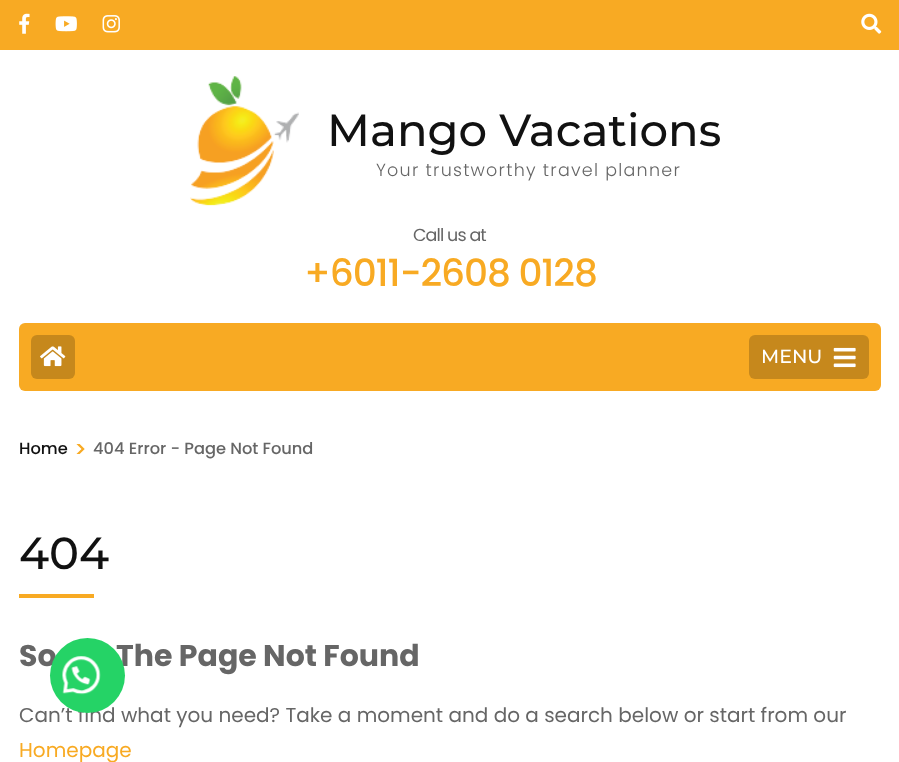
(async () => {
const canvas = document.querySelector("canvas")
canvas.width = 899
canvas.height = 762
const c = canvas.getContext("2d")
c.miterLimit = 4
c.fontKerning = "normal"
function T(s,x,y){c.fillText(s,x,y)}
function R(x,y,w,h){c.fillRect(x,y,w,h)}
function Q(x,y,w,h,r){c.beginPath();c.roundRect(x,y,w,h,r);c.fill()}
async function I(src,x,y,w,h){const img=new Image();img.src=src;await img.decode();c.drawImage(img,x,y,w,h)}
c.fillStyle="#fff"
R(0,0,899,762)
c.fillStyle="#f8aa23"
R(0,0,899,50)
await I("1.png",19,13,11,21)
await I("2.png",55,16,22,16)
await I("3.png",102,15,18,18)
await I("4.png",861,13,21,21)
await I("5.png",190,76,109,130)
c.font="500 45px Montserrat"
c.fillStyle="#111"
T("Mango Vacations",327,146)
c.letterSpacing="1.25px"
c.font="300 17.5px Poppins"
c.fillStyle="#666"
T("Your trustworthy travel planner",376,176)
c.letterSpacing="-0.9px"
c.font="17.5px Poppins"
T("Call us at",413,241)
c.letterSpacing="-1.1px"
c.font="500 37.5px Poppins"
c.fillStyle="#f8aa23"
T("+6011-2608 0128",304,286)
Q(19,323,862,68,6)
c.fillStyle="#c6881c"
Q(31,335,44,44,6)
await I("6.png",40,346,26,21)
Q(749,335,120,44,6)
c.letterSpacing="0px"
c.font="500 19px Montserrat"
c.fillStyle="#fff"
T("MENU",761,363)
await I("7.png",833,347,23,21)
c.font="500 16.25px Poppins"
c.fillStyle="#111"
T("Home",19,454)
c.font="500 22px Poppins"
c.fillStyle="#f8aa23"
T(">",74,457)
c.font="500 16.25px Poppins"
c.fillStyle="#666"
T("404 Error - Page Not Found",93,454)
c.font="500 45px Montserrat"
c.fillStyle="#111"
T("404",19,569)
c.fillStyle="#f8aa23"
R(19,594,75,4)
c.font="bold 30px Poppins"
c.fillStyle="#666"
T("So",19,666)
T("The Page Not Found",116,666)
c.font="20px Poppins"
T("Can’t find what you need? Take a moment and do a search below or start from our",19,722)
c.fillStyle="#f8aa23"
T("Homepage",19,757)
c.fillStyle="#25d366"
c.beginPath()
c.arc(87.5,675.5,37.5,0,7)
c.fill()
await I("8.png",62,656,39,39)
})()
